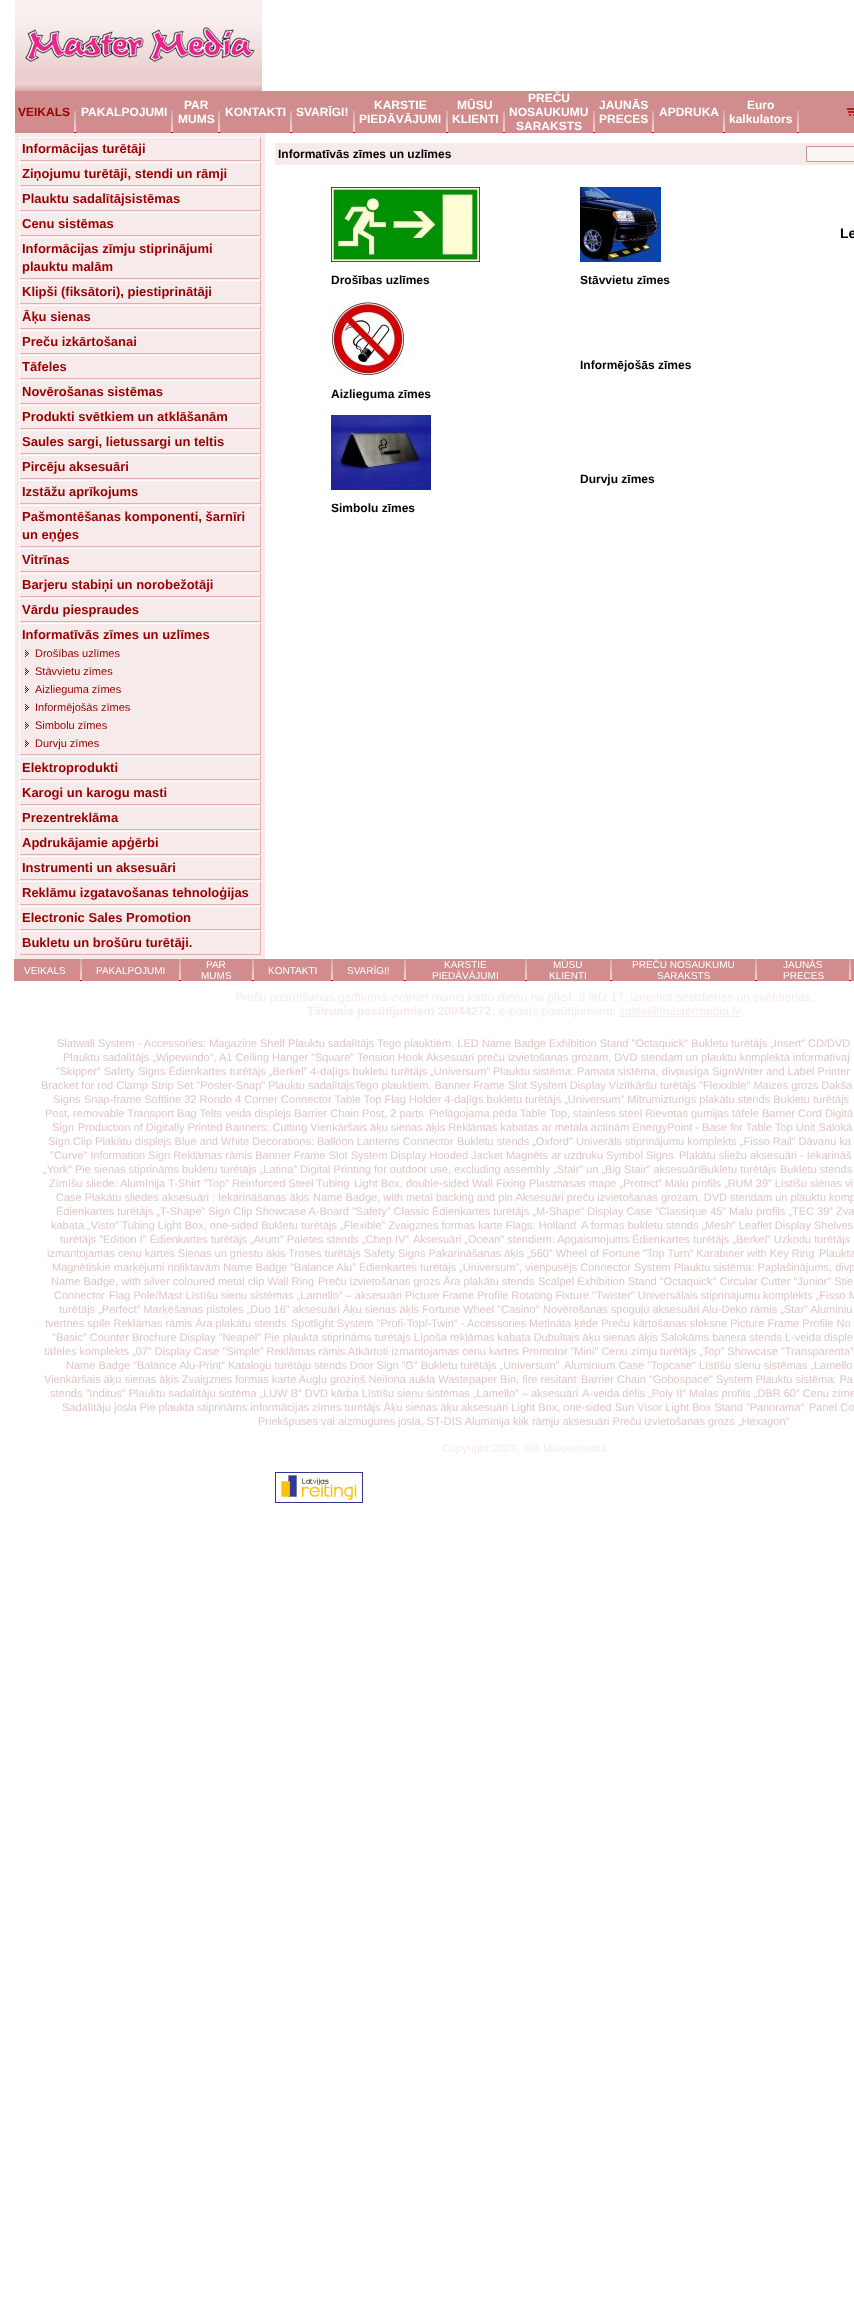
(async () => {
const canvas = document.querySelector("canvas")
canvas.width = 854
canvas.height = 2302
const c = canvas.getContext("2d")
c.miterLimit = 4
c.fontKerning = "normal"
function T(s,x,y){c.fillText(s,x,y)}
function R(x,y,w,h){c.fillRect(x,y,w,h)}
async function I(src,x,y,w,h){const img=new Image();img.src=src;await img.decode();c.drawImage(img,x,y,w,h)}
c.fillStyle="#fff"
R(0,0,854,2302)
await I("1.png",15,0,247,91)
c.fillStyle="#d18d8d"
R(15,91,839,42)
c.font="bold 12px Liberation Sans"
c.fillStyle="#900"
T("VEIKALS",18,116)
await I("2.png",74,111,2,22)
c.fillStyle="#fff"
T("PAKALPOJUMI",81,116)
await I("2.png",171,111,2,22)
T("PAR",184,109)
T("MUMS",178,123)
await I("2.png",218,111,2,22)
T("KONTAKTI",225,116)
await I("2.png",290,111,2,22)
T("SVARĪGI!",296,116)
await I("2.png",353,111,2,22)
T("KARSTIE",374,109)
T("PIEDĀVĀJUMI",359,123)
await I("2.png",446,111,2,22)
T("MŪSU",457,109)
T("KLIENTI",452,123)
await I("2.png",503,111,2,22)
T("PREČU",528,102)
T("NOSAUKUMU",509,116)
T("SARAKSTS",516,130)
await I("2.png",593,111,2,22)
T("JAUNĀS",599,109)
T("PRECES",599,123)
await I("2.png",652,111,2,22)
T("APDRUKA",659,116)
await I("2.png",723,111,2,22)
T("Euro",747,109)
T("kalkulators",729,123)
await I("2.png",797,111,2,22)
await I("3.png",847,108,7,8)
c.fillStyle="#f7eaea"
R(15,133,250,826)
c.fillStyle="#fff"
R(19,137,242,1)
c.fillStyle="#dfaeae"
R(260,137,1,24)
R(19,160,242,1)
c.fillStyle="#fff"
R(19,137,1,24)
c.font="bold 13px Liberation Sans"
c.fillStyle="#900"
T("Informācijas turētāji",22,153)
c.fillStyle="#fff"
R(19,162,242,1)
c.fillStyle="#dfaeae"
R(260,162,1,24)
R(19,185,242,1)
c.fillStyle="#fff"
R(19,162,1,24)
c.fillStyle="#900"
T("Ziņojumu turētāji, stendi un rāmji",22,178)
c.fillStyle="#fff"
R(19,187,242,1)
c.fillStyle="#dfaeae"
R(260,187,1,24)
R(19,210,242,1)
c.fillStyle="#fff"
R(19,187,1,24)
c.fillStyle="#900"
T("Plauktu sadalītājsistēmas",22,203)
c.fillStyle="#fff"
R(19,212,242,1)
c.fillStyle="#dfaeae"
R(260,212,1,24)
R(19,235,242,1)
c.fillStyle="#fff"
R(19,212,1,24)
c.fillStyle="#900"
T("Cenu sistēmas",22,228)
c.fillStyle="#fff"
R(19,237,242,1)
c.fillStyle="#dfaeae"
R(260,237,1,42)
R(19,278,242,1)
c.fillStyle="#fff"
R(19,237,1,42)
c.fillStyle="#900"
T("Informācijas zīmju stiprinājumi",22,253)
T("plauktu malām",22,271)
c.fillStyle="#fff"
R(19,280,242,1)
c.fillStyle="#dfaeae"
R(260,280,1,24)
R(19,303,242,1)
c.fillStyle="#fff"
R(19,280,1,24)
c.fillStyle="#900"
T("Klipši (fiksātori), piestiprinātāji",22,296)
c.fillStyle="#fff"
R(19,305,242,1)
c.fillStyle="#dfaeae"
R(260,305,1,24)
R(19,328,242,1)
c.fillStyle="#fff"
R(19,305,1,24)
c.fillStyle="#900"
T("Āķu sienas",22,321)
c.fillStyle="#fff"
R(19,330,242,1)
c.fillStyle="#dfaeae"
R(260,330,1,24)
R(19,353,242,1)
c.fillStyle="#fff"
R(19,330,1,24)
c.fillStyle="#900"
T("Preču izkārtošanai",22,346)
c.fillStyle="#fff"
R(19,355,242,1)
c.fillStyle="#dfaeae"
R(260,355,1,24)
R(19,378,242,1)
c.fillStyle="#fff"
R(19,355,1,24)
c.fillStyle="#900"
T("Tāfeles",22,371)
c.fillStyle="#fff"
R(19,380,242,1)
c.fillStyle="#dfaeae"
R(260,380,1,24)
R(19,403,242,1)
c.fillStyle="#fff"
R(19,380,1,24)
c.fillStyle="#900"
T("Novērošanas sistēmas",22,396)
c.fillStyle="#fff"
R(19,405,242,1)
c.fillStyle="#dfaeae"
R(260,405,1,24)
R(19,428,242,1)
c.fillStyle="#fff"
R(19,405,1,24)
c.fillStyle="#900"
T("Produkti svētkiem un atklāšanām",22,421)
c.fillStyle="#fff"
R(19,430,242,1)
c.fillStyle="#dfaeae"
R(260,430,1,24)
R(19,453,242,1)
c.fillStyle="#fff"
R(19,430,1,24)
c.fillStyle="#900"
T("Saules sargi, lietussargi un teltis",22,446)
c.fillStyle="#fff"
R(19,455,242,1)
c.fillStyle="#dfaeae"
R(260,455,1,24)
R(19,478,242,1)
c.fillStyle="#fff"
R(19,455,1,24)
c.fillStyle="#900"
T("Pircēju aksesuāri",22,471)
c.fillStyle="#fff"
R(19,480,242,1)
c.fillStyle="#dfaeae"
R(260,480,1,24)
R(19,503,242,1)
c.fillStyle="#fff"
R(19,480,1,24)
c.fillStyle="#900"
T("Izstāžu aprīkojums",22,496)
c.fillStyle="#fff"
R(19,505,242,1)
c.fillStyle="#dfaeae"
R(260,505,1,42)
R(19,546,242,1)
c.fillStyle="#fff"
R(19,505,1,42)
c.fillStyle="#900"
T("Pašmontēšanas komponenti, šarnīri",22,521)
T("un eņģes",22,539)
c.fillStyle="#fff"
R(19,548,242,1)
c.fillStyle="#dfaeae"
R(260,548,1,24)
R(19,571,242,1)
c.fillStyle="#fff"
R(19,548,1,24)
c.fillStyle="#900"
T("Vitrīnas",22,564)
c.fillStyle="#fff"
R(19,573,242,1)
c.fillStyle="#dfaeae"
R(260,573,1,24)
R(19,596,242,1)
c.fillStyle="#fff"
R(19,573,1,24)
c.fillStyle="#900"
T("Barjeru stabiņi un norobežotāji",22,589)
c.fillStyle="#fff"
R(19,598,242,1)
c.fillStyle="#dfaeae"
R(260,598,1,24)
R(19,621,242,1)
c.fillStyle="#fff"
R(19,598,1,24)
c.fillStyle="#900"
T("Vārdu piespraudes",22,614)
c.fillStyle="#fff"
R(19,623,242,1)
c.fillStyle="#dfaeae"
R(260,623,1,132)
R(19,754,242,1)
c.fillStyle="#fff"
R(19,623,1,132)
c.fillStyle="#900"
T("Informatīvās zīmes un uzlīmes",22,639)
await I("4.png",25,650,4,7)
c.font="11px Liberation Sans"
T("Drošības uzlīmes",35,657)
await I("4.png",25,668,4,7)
T("Stāvvietu zīmes",35,675)
await I("4.png",25,686,4,7)
T("Aizlieguma zīmes",35,693)
await I("4.png",25,704,4,7)
T("Informējošās zīmes",35,711)
await I("4.png",25,722,4,7)
T("Simbolu zīmes",35,729)
await I("4.png",25,740,4,7)
T("Durvju zīmes",35,747)
c.fillStyle="#fff"
R(19,756,242,1)
c.fillStyle="#dfaeae"
R(260,756,1,24)
R(19,779,242,1)
c.fillStyle="#fff"
R(19,756,1,24)
c.font="bold 13px Liberation Sans"
c.fillStyle="#900"
T("Elektroprodukti",22,772)
c.fillStyle="#fff"
R(19,781,242,1)
c.fillStyle="#dfaeae"
R(260,781,1,24)
R(19,804,242,1)
c.fillStyle="#fff"
R(19,781,1,24)
c.fillStyle="#900"
T("Karogi un karogu masti",22,797)
c.fillStyle="#fff"
R(19,806,242,1)
c.fillStyle="#dfaeae"
R(260,806,1,24)
R(19,829,242,1)
c.fillStyle="#fff"
R(19,806,1,24)
c.fillStyle="#900"
T("Prezentreklāma",22,822)
c.fillStyle="#fff"
R(19,831,242,1)
c.fillStyle="#dfaeae"
R(260,831,1,24)
R(19,854,242,1)
c.fillStyle="#fff"
R(19,831,1,24)
c.fillStyle="#900"
T("Apdrukājamie apģērbi",22,847)
c.fillStyle="#fff"
R(19,856,242,1)
c.fillStyle="#dfaeae"
R(260,856,1,24)
R(19,879,242,1)
c.fillStyle="#fff"
R(19,856,1,24)
c.fillStyle="#900"
T("Instrumenti un aksesuāri",22,872)
c.fillStyle="#fff"
R(19,881,242,1)
c.fillStyle="#dfaeae"
R(260,881,1,24)
R(19,904,242,1)
c.fillStyle="#fff"
R(19,881,1,24)
c.fillStyle="#900"
T("Reklāmu izgatavošanas tehnoloģijas",22,897)
c.fillStyle="#fff"
R(19,906,242,1)
c.fillStyle="#dfaeae"
R(260,906,1,24)
R(19,929,242,1)
c.fillStyle="#fff"
R(19,906,1,24)
c.fillStyle="#900"
T("Electronic Sales Promotion",22,922)
c.fillStyle="#fff"
R(19,931,242,1)
c.fillStyle="#dfaeae"
R(260,931,1,24)
R(19,954,242,1)
c.fillStyle="#fff"
R(19,931,1,24)
c.fillStyle="#900"
T("Bukletu un brošūru turētāji.",22,947)
c.fillStyle="#f7eaea"
R(275,143,579,22)
c.font="bold 12px Liberation Sans"
c.fillStyle="#000"
T("Informatīvās zīmes un uzlīmes",278,158)
c.fillStyle="#fcf6f6"
c.beginPath()
c.rect(806.5,146.5,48,15)
c.fill()
c.strokeStyle="#d39292"
c.stroke()
c.font="bold 14px Liberation Sans"
c.fillStyle="#000"
T("Le",840,238)
await I("5.png",331,187,149,75)
c.font="bold 12px Liberation Sans"
T("Drošības uzlīmes",331,284)
await I("6.png",580,187,81,75)
T("Stāvvietu zīmes",580,284)
T("Informējošās zīmes",580,369)
await I("7.png",331,301,74,75)
T("Aizlieguma zīmes",331,398)
T("Durvju zīmes",580,483)
await I("8.png",331,415,100,75)
T("Simbolu zīmes",331,512)
c.fillStyle="#d18d8d"
R(14,959,840,22)
c.font="10px Liberation Sans"
c.fillStyle="#fff"
T("VEIKALS",24,974)
await I("2.png",80,959,2,22)
T("PAKALPOJUMI",96,974)
await I("2.png",179,959,2,22)
T("PAR",206,968)
T("MUMS",201,979)
await I("2.png",252,959,2,22)
T("KONTAKTI",268,974)
await I("2.png",331,959,2,22)
T("SVARĪGI!",347,974)
await I("2.png",404,959,2,22)
T("KARSTIE",444,968)
T("PIEDĀVĀJUMI",432,979)
await I("2.png",525,959,2,22)
T("MŪSU",553,968)
T("KLIENTI",549,979)
await I("2.png",610,959,2,22)
T("PREČU NOSAUKUMU",632,968)
T("SARAKSTS",657,979)
await I("2.png",755,959,2,22)
T("JAUNĀS",783,968)
T("PRECES",783,979)
await I("2.png",849,959,2,22)
c.font="12px Liberation Sans"
c.fillStyle="#f7eaea"
T("Preču pasūtīšanas gadījumā zvaniet mums katru dienu no plkst. 9 līdz 17, izņemot sestdienas un svētdienas.",235,1001)
c.font="bold 12px Liberation Sans"
T("Tālrunis pasūtījumiem 20044272",307,1015)
c.font="12px Liberation Sans"
T("; e-pasts pasūtījumiem:",492,1015)
R(619,1016,122,1)
T("sales@mastermedia.lv",619,1015)
c.font="11px Liberation Sans"
c.fillStyle="#e1c7c7"
T("Slatwall System - Accessories: Magazine Shelf Plauktu sadalītājs Tego plauktiem. LED Name Badge Exhibition Stand \"Octaquick\" Bukletu turētājs „Insert” CD/DVD",57,1047)
T("Plauktu sadalītājs „Wipewindo”, A1 Ceiling Hanger ”Square” Tension Hook Aksesuāri preču izvietošanas grozam, DVD stendam un plauktu komplekta informatīvaj",63,1061)
T("”Skipper” Safety Signs Ēdienkartes turētājs „Berkel” 4-daļīgs bukletu turētājs „Universum” Plauktu sistēma: Pamata sistēma, divpusīga SignWriter and Label Printer",56,1075)
T("Bracket for rod Clamp Strip Set \"Poster-Snap\" Plauktu sadalītājsTego plauktiem. Banner Frame Slot System Display Vizītkāršu turētājs \"Flexxible\" Maizes grozs Dakša",41,1089)
T("Signs",53,1103)
T("Snap-frame Softline 32 Rondo 4 Corner Connector Table Top Flag Holder 4-daļīgs bukletu turētājs „Universum” Mitrumizturīgs plakātu stends Bukletu turētājs",84,1103)
T("Post, removable Transport Bag Telts veida displejs Barrier Chain Post, 2 parts",45,1117)
T("Pielāgojama pēda",429,1117)
T("Table Top, stainless steel Rievotas gumijas tāfele Barrier Cord Digitā",520,1117)
T("Sign",52,1131)
T("Production of Digitally Printed Banners: Cutting Vienkāršais āķu sienas āķis Reklāmas kabatas ar metāla actiņām EnergyPoint - Base for Table Top Unit Salokā",78,1131)
T("Sign Clip Plakātu displejs Blue and White Decorations: Balloon Lanterns Connector",48,1145)
T("Bukletu stends „Oxford”",457,1145)
T("Univerāls stiprinājumu komplekts „Fisso Rail” Dāvanu ka",576,1145)
T("\"Curve\" Information Sign Reklāmas rāmis Banner Frame Slot System Display Hooded Jacket Magnēts ar uzdruku Symbol Signs",50,1159)
T("Plakātu sliežu aksesuāri - Iekarināš",679,1159)
T("„York” Pie sienas stiprināms bukletu turētājs „Latina”",43,1173)
T("Digital Printing for outdoor use, excluding assembly „Stair” un „Big Stair” aksesuāriBukletu turētājs",300,1173)
T("Bukletu stends",780,1173)
T("Zīmīšu sliede: Alumīnija T-Shirt \"Top\" Reinforced Steel Tubing",49,1187)
T("Light Box, double-sided Wall Fixing",354,1187)
T("Plastmasas mape „Protect” Malu profils „RUM 39” Līstīšu sienas vi",529,1187)
T("Case Plakātu sliedes aksesuāri : Iekarināšanas āķis",56,1201)
T("Name Badge, with metal backing and pin Aksesuāri preču izvietošanas grozam, DVD stendam un plauktu komp",313,1201)
T("Ēdienkartes turētājs „T-Shape” Sign Clip Showcase A-Board ”Safety” Classic Ēdienkartes turētājs „M-Shape” Display Case ”Classique 45” Malu profils „TEC 39” Zva",56,1215)
T("kabata „Visto” Tubing Light Box, one-sided Bukletu turētājs „Flexible” Zvaigznes formas karte Flags: Holland",51,1229)
T("A formas bukletu stends „Mesh” Leaflet Display Shelves",581,1229)
T("turētājs \"Edition I\" Ēdienkartes turētājs „Arum” Paletes stends „Chep IV”",60,1243)
T("Aksesuāri „Ocean” stendiem: Apgaismojums",413,1243)
T("Ēdienkartes turētājs „Berkel” Uzkodu turētājs",632,1243)
T("izmantojamas cenu kartes Sienas un griestu āķis Troses turētājs Safety Signs Pakarināšanas āķis „560” Wheel of Fortune ”Top Turn” Karabiner with Key Ring",47,1257)
T("Plaukta",819,1257)
T("Magnētiskie marķējumi noliktavām Name Badge ”Balance Alu” Ēdienkartes turētājs „Universum”, vienpusējs Connector System Plauktu sistēma: Paplašinājums, divp",52,1271)
T("Name Badge, with silver coloured metal clip Wall Ring",51,1285)
T("Preču izvietošanas grozs Āra plakātu stends",318,1285)
T("Scalpel Exhibition Stand \"Octaquick\" Circular Cutter \"Junior\" Stie",538,1285)
T("Connector",54,1299)
T("Flag Pole/Mast Līstīšu sienu sistēmas „Lamello” – aksesuāri",109,1299)
T("Picture Frame Profile Rotating Fixture \"Twister\" Universālais stiprinājumu komplekts „Fisso M",405,1299)
T("turētājs „Perfect” Marķēšanas pistoles „Duo 16” aksesuāri Āķu sienas āķis Fortune Wheel \"Casino\"",59,1313)
T("Novērošanas spoguļu aksesuāri Alu-Deko rāmis „Star” Aluminiu",543,1313)
T("tvertnes spīle Reklāmas rāmis Āra plakātu stends",45,1327)
T("Spotlight System \"Profi-Top/-Twin\" - Accessories",291,1327)
T("Metināta ķēde Preču kārtošanas sloksne Picture Frame Profile No",529,1327)
T("\"Basic\" Counter Brochure Display ”Neapel” Pie plaukta stiprināms turētājs Līpoša reklāmas kabata Dubultais āķu sienas āķis Salokāms banera stends L-veida disple",52,1341)
T("tāfeles komplekts „07” Display Case ”Simple” Reklāmas rāmis Atkārtoti izmantojamas cenu kartes Promotor \"Mini\" Cenu zīmju turētājs „Top” Showcase ”Transparenta”",44,1355)
T("Name Badge ”Balance Alu-Print” Katalogu turētāju stends Door Sign ”G” Bukletu turētājs „Universum”",66,1369)
T("Aluminium Case \"Topcase\" Līstīšu sienu sistēmas „Lamello",564,1369)
T("Vienkāršais āķu sienas āķis Zvaigznes formas karte Augļu groziņš Neilona aukla Wastepaper Bin, fire resitant",44,1383)
T("Barrier Chain \"Gobospace\" System Plauktu sistēma: Pa",581,1383)
T("stends \"Inditus\" Plauktu sadalītāju sistēma „LUW B” DVD kārba Līstīšu sienu sistēmas „Lamello” – aksesuāri",50,1397)
T("A-veida dēlis „Poly II” Malas profils „DBR 60” Cenu zīme",582,1397)
T("Sadalītāju josla Pie plaukta stiprināms informācijas zīmes turētājs Āķu sienas āķu aksesuāri Light Box, one-sided Sun Visor Light Box Stand ”Panorama”",62,1411)
T("Panel Co",809,1411)
T("Priekšpuses vai aizmugures josla, ST-DIS Alumīnija klik rāmju aksesuāri Preču izvietošanas grozs „Hexagon”",258,1425)
c.fillStyle="#f7eaea"
T("Copyright 2007, SIA Mastermedia",442,1452)
await I("9.png",275,1472,88,31)
})()
